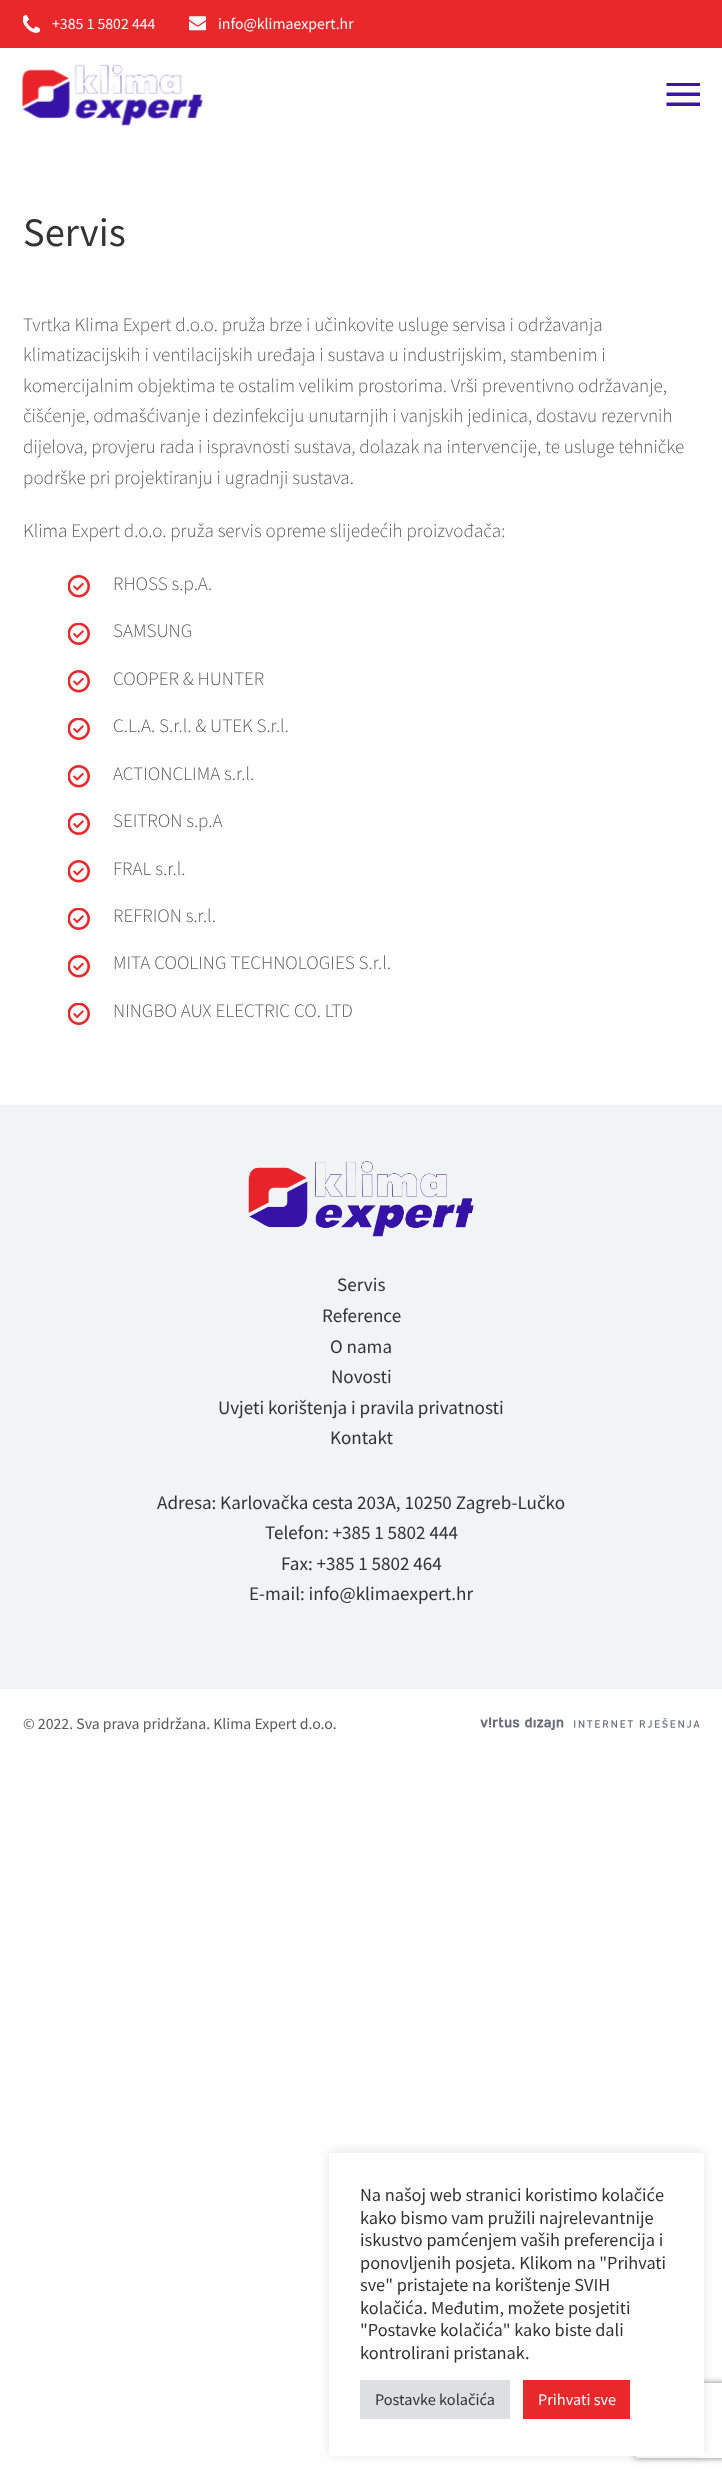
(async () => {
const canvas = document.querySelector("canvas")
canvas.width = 722
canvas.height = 2474
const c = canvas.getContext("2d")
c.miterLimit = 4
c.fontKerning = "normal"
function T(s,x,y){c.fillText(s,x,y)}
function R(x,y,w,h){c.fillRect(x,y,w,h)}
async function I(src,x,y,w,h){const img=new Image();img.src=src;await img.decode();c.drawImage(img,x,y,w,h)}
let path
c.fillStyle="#fff"
R(0,0,722,2474)
c.fillStyle="#e9282b"
R(0,0,722,48)
await I("1.png",23,15,17,18)
c.font="15.75px Source Sans Pro"
c.fillStyle="#fff"
T("+385 1 5802 444",52,29)
await I("2.png",189,16,17,15)
T("info@klimaexpert.hr",218,29)
await I("3.png",22,64,181,62)
c.save()
c.beginPath()
c.rect(666,83,34,23)
c.clip()
c.fillStyle="#3c14a6"
path = new Path2D("M666.5 82.5h33.5v3.5h-33.5zm0 10h33.5v3.5h-33.5zm0 10h33.5v3.5h-33.5z")
c.fill(path)
c.restore()
c.font="40.5px Source Sans Pro"
c.fillStyle="#333"
T("Servis",23,246)
c.font="300 19.1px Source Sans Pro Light"
c.fillStyle="#5b5a5a"
T("Tvrtka Klima Expert d.o.o. pruža brze i učinkovite usluge servisa i održavanja",23,331)
T("klimatizacijskih i ventilacijskih uređaja i sustava u industrijskim, stambenim i",23,361)
T("komercijalnim objektima te ostalim velikim prostorima. Vrši preventivno održavanje,",23,392)
T("čišćenje, odmašćivanje i dezinfekciju unutarnjih i vanjskih jedinica, dostavu rezervnih",23,422)
T("dijelova, provjeru rada i ispravnosti sustava, dolazak na intervencije, te usluge tehničke",23,453)
T("podrške pri projektiranju i ugradnji sustava.",23,484)
T("Klima Expert d.o.o. pruža servis opreme slijedećih proizvođača:",23,537)
await I("4.png",68,575,22,23)
T("RHOSS s.p.A.",113,590)
await I("5.png",68,623,22,22)
T("SAMSUNG",113,637)
await I("4.png",68,670,22,23)
T("COOPER & HUNTER",113,685)
await I("5.png",68,718,22,22)
T("C.L.A. S.r.l. & UTEK S.r.l.",113,732)
await I("4.png",68,765,22,23)
T("ACTIONCLIMA s.r.l.",113,780)
await I("5.png",68,813,22,22)
T("SEITRON s.p.A",113,827)
await I("4.png",68,860,22,23)
T("FRAL s.r.l.",113,875)
await I("5.png",68,908,22,22)
T("REFRION s.r.l.",113,922)
await I("4.png",68,955,22,23)
T("MITA COOLING TECHNOLOGIES S.r.l.",113,969)
await I("5.png",68,1003,22,22)
T("NINGBO AUX ELECTRIC CO. LTD",113,1017)
c.fillStyle="#f0f4f5"
R(0,1105,722,584)
await I("6.png",248,1161,226,76)
c.font="19.1px Source Sans Pro"
c.fillStyle="#333"
T("Servis",337,1291)
T("Reference",322,1322)
T("O nama",330,1353)
T("Novosti",331,1383)
T("Uvjeti korištenja i pravila privatnosti",218,1414)
T("Kontakt",330,1444)
T("Adresa: Karlovačka cesta 203A, 10250 Zagreb-Lučko",157,1509)
T("Telefon: +385 1 5802 444",265,1539)
T("Fax: +385 1 5802 464",281,1570)
T("E-mail: info@klimaexpert.hr",249,1600)
c.font="15.75px Source Sans Pro"
c.fillStyle="#5b5a5a"
T("© 2022. Sva prava pridržana. Klima Expert d.o.o.",23,1729)
await I("7.png",480,1717,220,13)
c.fillStyle="#acabab4d"
c.filter="blur(6px)"
c.beginPath()
c.rect(329,2151,375,304)
c.fill()
c.filter="none"
c.save()
path = new Path2D("M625 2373h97v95h-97zm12.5 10h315c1.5 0 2.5 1 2.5 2.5v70c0 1.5-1 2.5-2.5 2.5h-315c-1.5 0-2.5-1-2.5-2.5v-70c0-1.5 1-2.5 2.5-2.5z")
c.clip(path,"evenodd")
c.fillStyle="#808080"
c.filter="blur(3px)"
c.beginPath()
c.roundRect(635,2383,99,75,2.5)
c.fill()
c.filter="none"
c.restore()
c.fillStyle="#fff"
R(329,2153,375,303)
c.font="18.3px Source Sans Pro"
c.fillStyle="#333"
T("Na našoj web stranici koristimo kolačiće",360,2201)
T("kako bismo vam pružili najrelevantnije",360,2224)
T("iskustvo pamćenjem vaših preferencija i",360,2246)
T("ponovljenih posjeta. Klikom na \"Prihvati",360,2269)
T("sve\" pristajete na korištenje SVIH",360,2291)
T("kolačića. Međutim, možete posjetiti",360,2314)
T("\"Postavke kolačića\" kako biste dali",360,2336)
T("kontrolirani pristanak.",360,2359)
c.fillStyle="#dedfe0"
R(360,2380,150,39)
c.font="16.25px Source Sans Pro"
c.fillStyle="#333"
T("Postavke kolačića",375,2405)
c.fillStyle="#e9282b"
R(523,2380,107,39)
c.fillStyle="#fff"
T("Prihvati sve",538,2405)
})()
